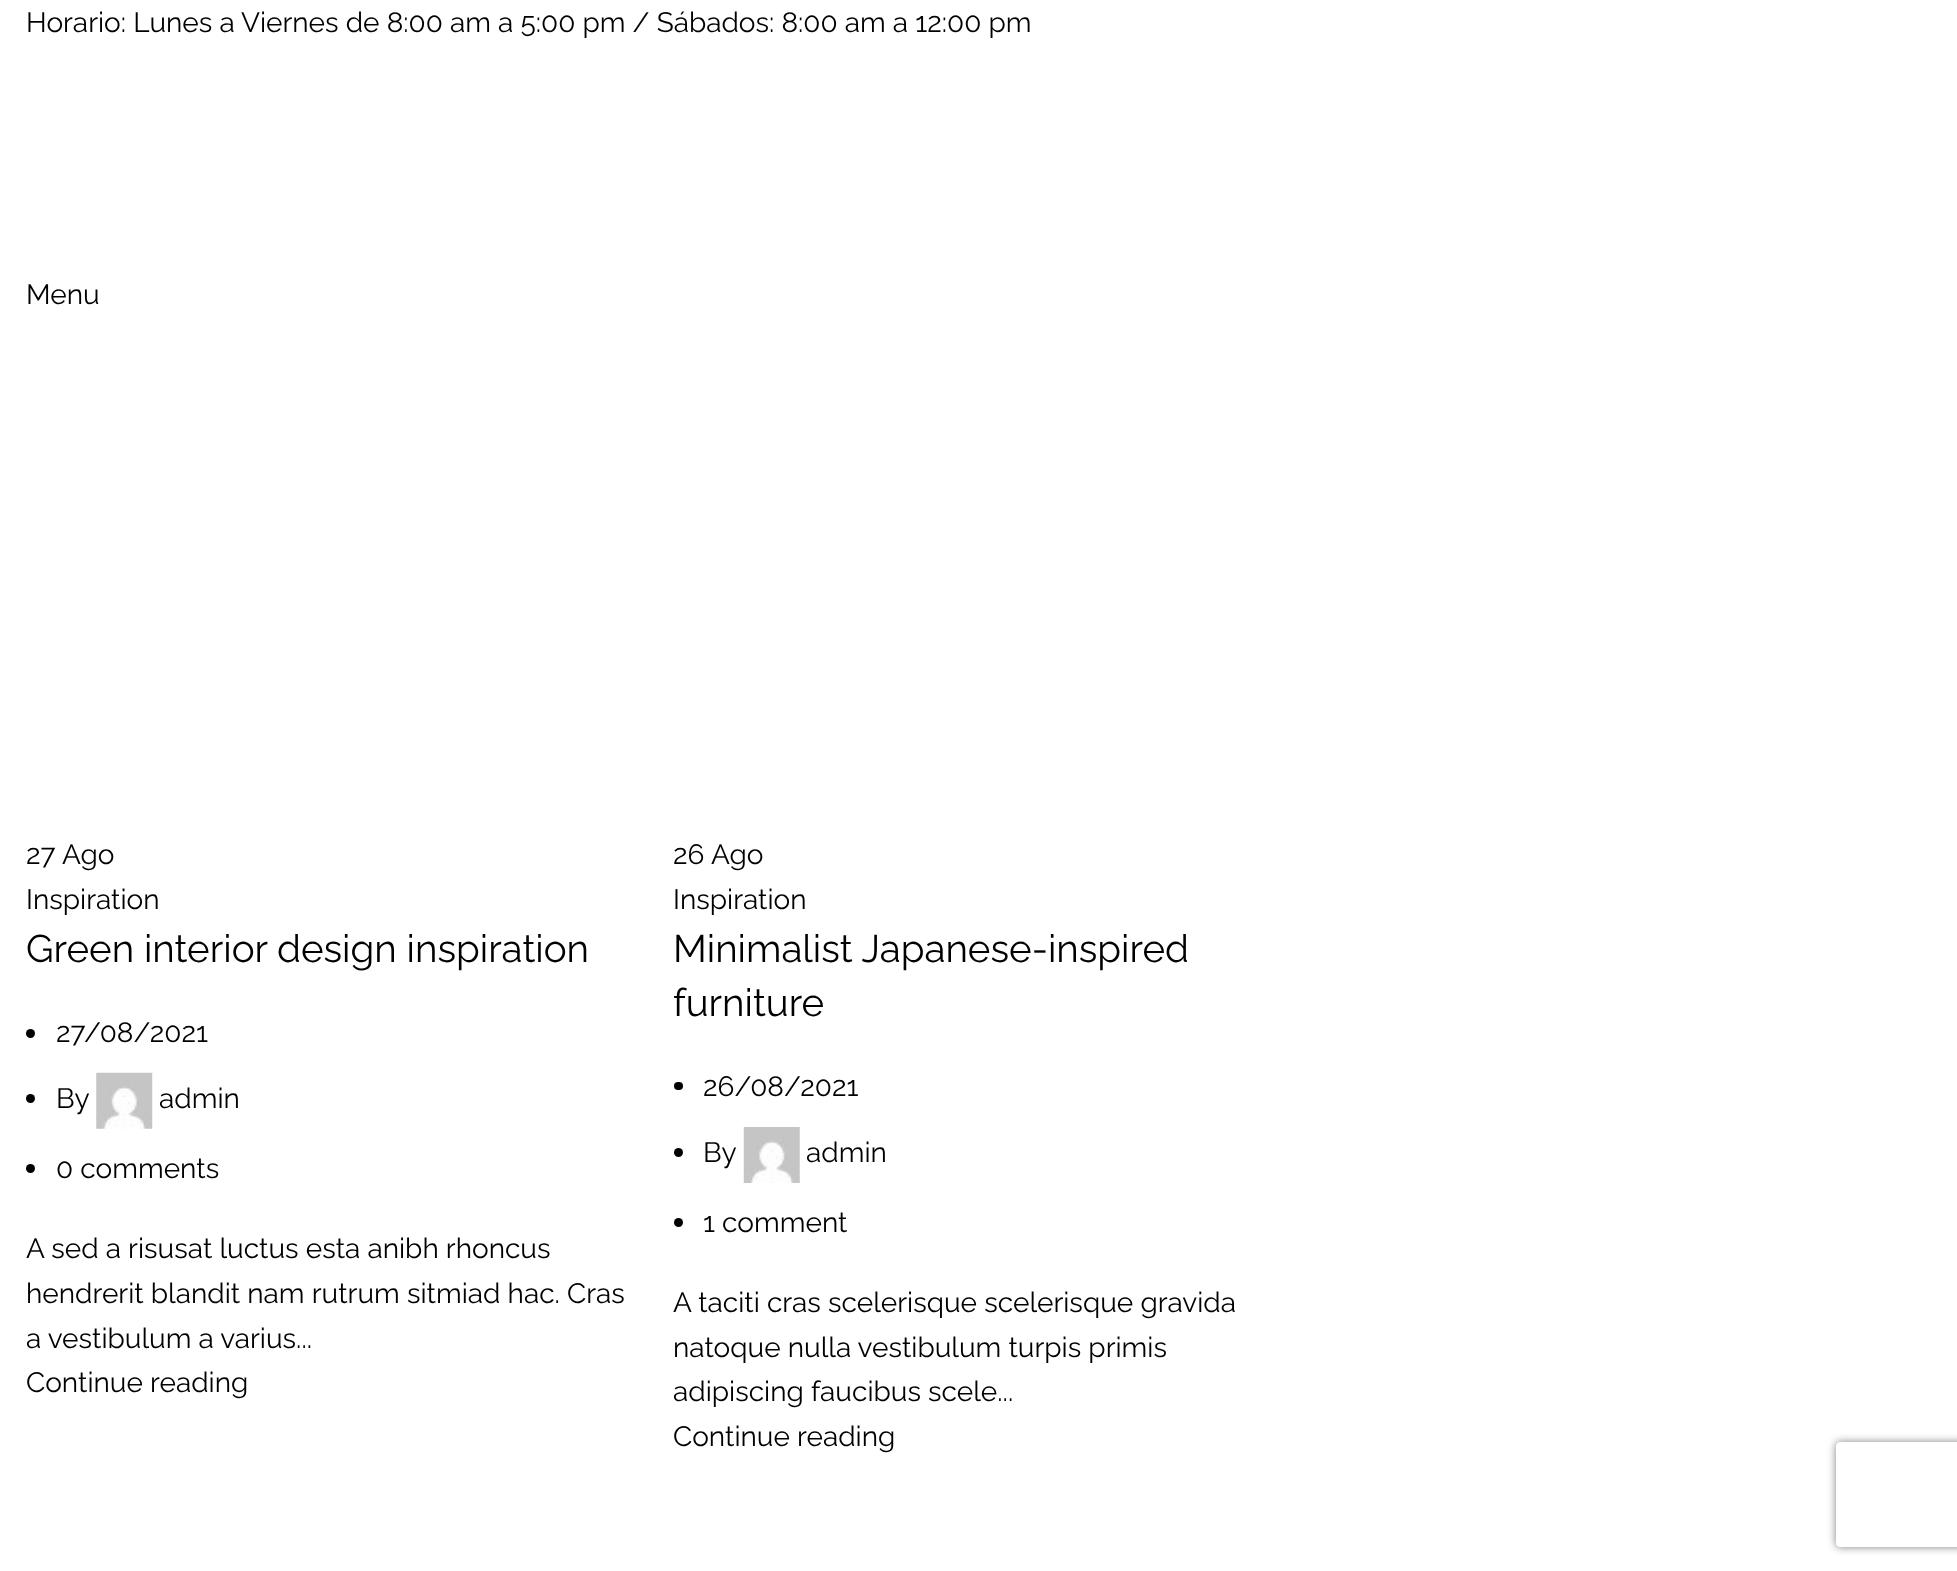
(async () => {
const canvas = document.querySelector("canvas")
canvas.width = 1957
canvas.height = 1571
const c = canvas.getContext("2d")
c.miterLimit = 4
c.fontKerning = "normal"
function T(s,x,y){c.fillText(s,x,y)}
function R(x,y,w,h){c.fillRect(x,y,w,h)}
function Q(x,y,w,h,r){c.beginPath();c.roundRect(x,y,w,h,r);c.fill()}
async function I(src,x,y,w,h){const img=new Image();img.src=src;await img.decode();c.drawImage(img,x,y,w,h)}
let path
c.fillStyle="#fff"
R(0,0,1957,1571)
c.font="28px Raleway"
c.fillStyle="#000"
T("Horario: Lunes a Viernes de 8:00 am a 5:00 pm / Sábados: 8:00 am a 12:00 pm",26,32)
T("Menu",26,304)
T("27",26,864)
T("Ago",62,864)
T("Inspiration",26,909)
c.font="38.5px Raleway"
T("Green interior design inspiration",26,962)
c.beginPath()
c.arc(30.5,1033.5,4.5,0,7)
c.fill()
c.font="28px Raleway"
T("27/08/2021",56,1042)
c.beginPath()
c.arc(30.5,1098.5,4.5,0,7)
c.fill()
T("By",56,1108)
await I("1.png",96,1072,57,57)
T("admin",159,1108)
c.beginPath()
c.arc(30.5,1168.5,4.5,0,7)
c.fill()
T("0 comments",56,1178)
T("A sed a risusat luctus esta anibh rhoncus",26,1258)
T("hendrerit blandit nam rutrum sitmiad hac. Cras",26,1303)
T("a vestibulum a varius...",26,1348)
T("Continue reading",26,1392)
T("26",673,864)
T("Ago",711,864)
T("Inspiration",673,909)
c.font="38.5px Raleway"
T("Minimalist Japanese-inspired",673,962)
T("furniture",673,1016)
Q(674,1082,9,8,4)
c.font="28px Raleway"
T("26/08/2021",703,1096)
c.beginPath()
c.arc(678.5,1152.5,4.5,0,7)
c.fill()
T("By",703,1162)
await I("2.png",743,1127,57,56)
T("admin",806,1162)
c.beginPath()
c.arc(678.5,1222.5,4.5,0,7)
c.fill()
T("1 comment",703,1232)
T("A taciti cras scelerisque scelerisque gravida",673,1312)
T("natoque nulla vestibulum turpis primis",673,1357)
T("adipiscing faucibus scele...",673,1401)
T("Continue reading",673,1446)
c.save()
path = new Path2D("M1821 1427h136v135h-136zm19 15h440c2 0 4 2 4 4v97c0 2-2 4-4 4h-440c-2 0-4-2-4-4v-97c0-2 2-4 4-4z")
c.clip(path,"evenodd")
c.fillStyle="#808080"
c.filter="blur(4.5px)"
c.beginPath()
c.roundRect(1836,1442,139,105,4)
c.fill()
c.filter="none"
c.restore()
})()
